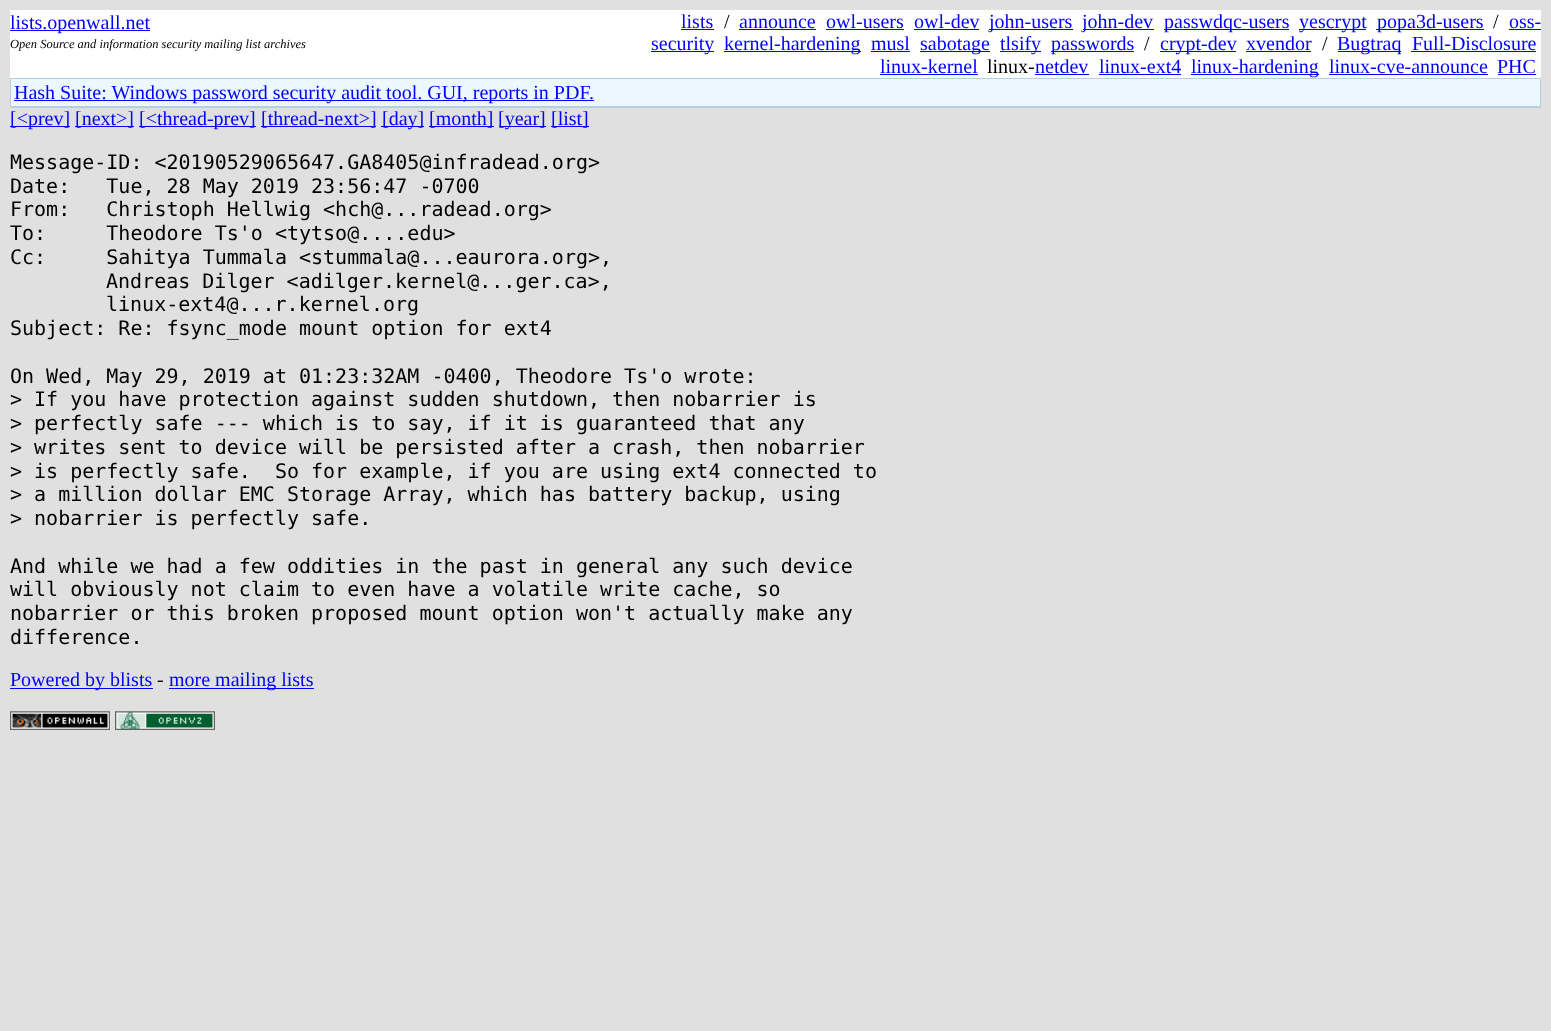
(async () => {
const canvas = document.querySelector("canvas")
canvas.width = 1551
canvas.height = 1031
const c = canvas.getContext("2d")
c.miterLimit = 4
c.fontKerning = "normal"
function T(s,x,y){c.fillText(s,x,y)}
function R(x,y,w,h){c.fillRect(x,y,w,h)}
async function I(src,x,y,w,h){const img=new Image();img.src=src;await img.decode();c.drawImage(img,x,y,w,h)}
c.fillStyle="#e0e0e0"
R(0,0,1551,1031)
c.fillStyle="#fff"
R(10,10,1531,68)
c.fillStyle="#00f"
R(10,30,140,1)
c.font="20px Liberation Serif"
T("lists.openwall.net",10,29)
T("lists",681,28)
R(681,29,33,1)
c.fillStyle="#000"
T("/",724,28)
c.fillStyle="#00f"
T("announce",739,28)
R(739,29,77,1)
T("owl-users",826,28)
R(826,29,78,1)
T("owl-dev",914,28)
R(914,29,65,1)
R(989,29,84,1)
T("john-users",989,28)
R(1083,29,71,1)
T("john-dev",1082,28)
R(1164,29,125,1)
T("passwdqc-users",1164,28)
R(1299,29,67,1)
T("yescrypt",1299,28)
R(1376,29,108,1)
T("popa3d-users",1377,28)
c.fillStyle="#000"
T("/",1493,28)
c.fillStyle="#00f"
T("oss-",1509,28)
R(1509,29,32,1)
R(651,51,63,1)
T("security",651,50)
R(724,51,137,1)
T("kernel-hardening",724,50)
T("musl",871,50)
R(871,51,39,1)
R(920,51,70,1)
T("sabotage",920,50)
R(1000,51,41,1)
T("tlsify",1000,50)
R(1051,51,83,1)
T("passwords",1051,50)
c.fillStyle="#000"
T("/",1144,50)
c.fillStyle="#00f"
R(1160,51,76,1)
T("crypt-dev",1160,50)
T("xvendor",1246,50)
R(1246,51,65,1)
c.fillStyle="#000"
T("/",1322,50)
c.fillStyle="#00f"
R(1338,51,63,1)
T("Bugtraq",1337,50)
T("Full-Disclosure",1412,50)
R(1411,51,125,1)
T("linux-kernel",880,73)
R(880,74,98,1)
c.fillStyle="#000"
T("linux-",987,73)
c.fillStyle="#00f"
T("netdev",1035,73)
R(1035,74,54,1)
T("linux-ext4",1099,73)
R(1099,74,82,1)
R(1191,74,128,1)
T("linux-hardening",1191,73)
T("linux-cve-announce",1329,73)
R(1329,74,159,1)
T("PHC",1497,73)
R(1498,74,38,1)
c.font="italic 12.5px Liberation Serif"
c.fillStyle="#000"
T("Open Source and information security mailing list archives",10,48)
c.fillStyle="#b4d0dc"
R(10,78,1531,30)
c.fillStyle="#ecf8ff"
R(11,79,1529,27)
c.fillStyle="#00f"
R(14,100,580,1)
c.font="20px Liberation Serif"
T("Hash Suite: Windows password security audit tool. GUI, reports in PDF.",14,99)
R(10,126,60,1)
T("[<prev]",10,125)
R(75,126,59,1)
T("[next>]",75,125)
R(139,126,117,1)
T("[<thread-prev]",139,125)
R(261,126,115,1)
T("[thread-next>]",261,125)
R(381,126,43,1)
T("[day]",382,125)
R(429,126,65,1)
T("[month]",429,125)
R(499,126,47,1)
T("[year]",498,125)
R(551,126,38,1)
T("[list]",551,125)
c.font="20px DejaVu Sans Mono"
c.fillStyle="#000"
T("Message-ID: <20190529065647.GA8405@infradead.org>",10,169)
T("Date:   Tue, 28 May 2019 23:56:47 -0700",10,193)
T("From:   Christoph Hellwig <hch@...radead.org>",10,216)
T("To:     Theodore Ts'o <tytso@....edu>",10,240)
T("Cc:     Sahitya Tummala <stummala@...eaurora.org>,",10,264)
T("Andreas Dilger <adilger.kernel@...ger.ca>,",106,288)
T("linux-ext4@...r.kernel.org",106,311)
T("Subject: Re: fsync_mode mount option for ext4",10,335)
T("On Wed, May 29, 2019 at 01:23:32AM -0400, Theodore Ts'o wrote:",10,383)
T("> If you have protection against sudden shutdown, then nobarrier is",10,406)
T("> perfectly safe --- which is to say, if it is guaranteed that any",10,430)
T("> writes sent to device will be persisted after a crash, then nobarrier",10,454)
T("> is perfectly safe.  So for example, if you are using ext4 connected to",10,478)
T("> a million dollar EMC Storage Array, which has battery backup, using",10,501)
T("> nobarrier is perfectly safe.",10,525)
T("And while we had a few oddities in the past in general any such device",10,573)
T("will obviously not claim to even have a volatile write cache, so",10,596)
T("nobarrier or this broken proposed mount option won't actually make any",10,620)
T("difference.",10,644)
c.fillStyle="#00f"
R(10,688,143,1)
c.font="20px Liberation Serif"
T("Powered by blists",10,686)
c.fillStyle="#000"
T("-",157,686)
c.fillStyle="#00f"
R(169,688,145,1)
T("more mailing lists",169,686)
await I("1.png",10,711,100,19)
await I("2.png",115,711,100,19)
})()
